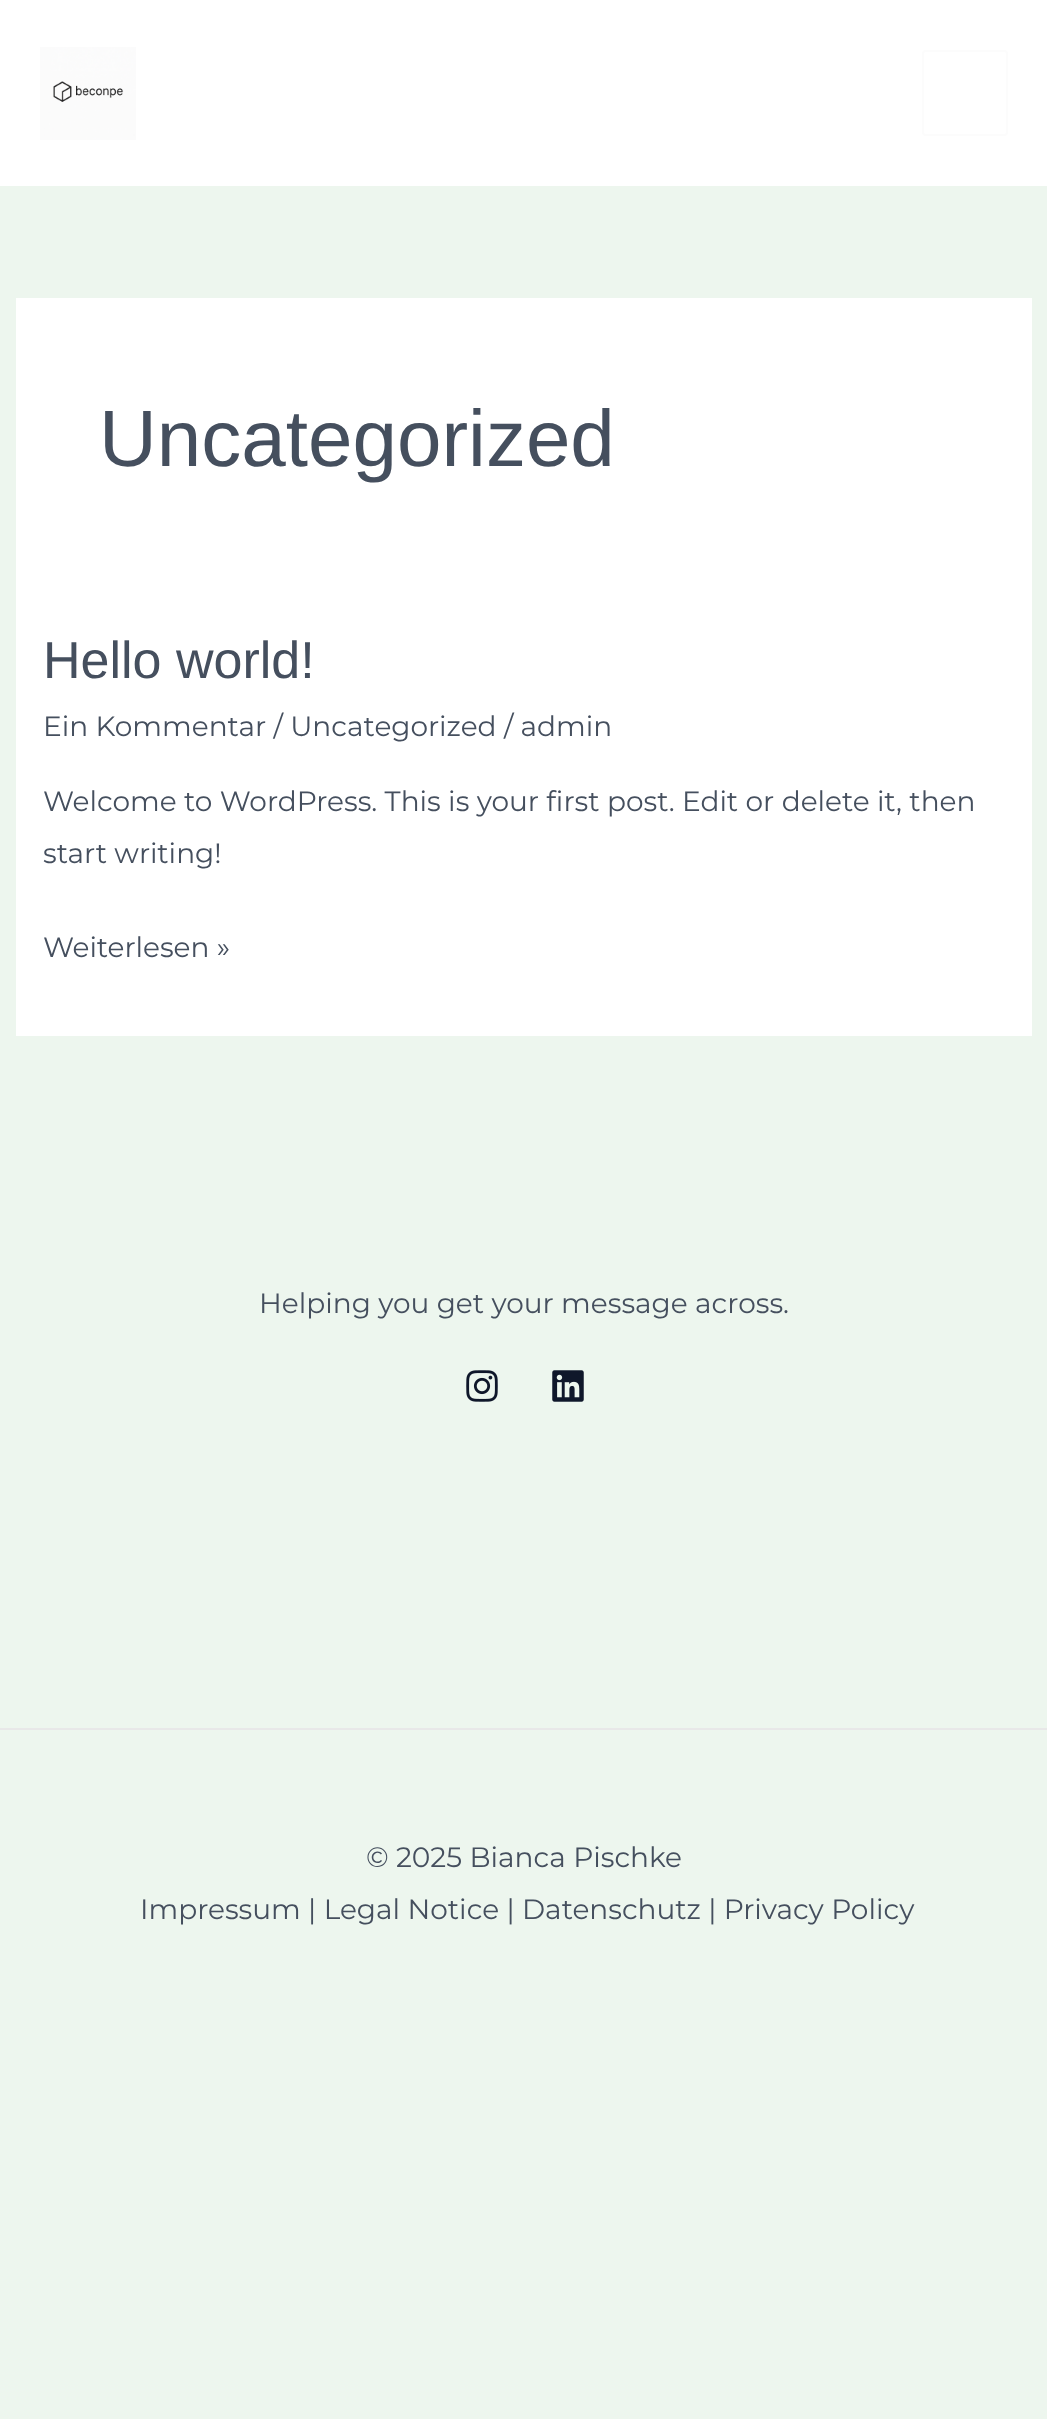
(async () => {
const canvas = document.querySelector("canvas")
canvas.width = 1047
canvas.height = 2419
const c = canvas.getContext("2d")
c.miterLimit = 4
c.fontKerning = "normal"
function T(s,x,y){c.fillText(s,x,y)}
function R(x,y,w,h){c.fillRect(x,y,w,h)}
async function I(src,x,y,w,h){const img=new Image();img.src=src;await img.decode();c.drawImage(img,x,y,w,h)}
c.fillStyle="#edf6ee"
R(0,0,1047,2419)
c.fillStyle="#fff"
R(0,0,1047,186)
await I("1.png",40,47,96,93)
c.beginPath()
c.roundRect(923,51,84,84,3)
c.strokeStyle="#fcfcfc"
c.lineWidth=2
c.stroke()
R(16,298,1016,738)
c.font="80px Liberation Sans"
c.fillStyle="#454f5e"
T("Uncategorized",99,466)
c.font="52px Liberation Sans"
T("Hello world!",43,678)
c.font="28px Montserrat"
T("Ein Kommentar / Uncategorized / admin",43,736)
T("Welcome to WordPress. This is your first post. Edit or delete it, then",43,811)
T("start writing!",43,863)
T("Weiterlesen »",43,957)
T("Helping you get your message across.",259,1313)
await I("2.png",466,1370,32,32)
await I("3.png",552,1370,32,32)
c.fillStyle="#e8e8e8"
R(0,1728,1047,2)
c.fillStyle="#454f5e"
T("© 2025 Bianca Pischke",366,1867)
T("Impressum | Legal Notice | Datenschutz | Privacy Policy",140,1919)
})()
